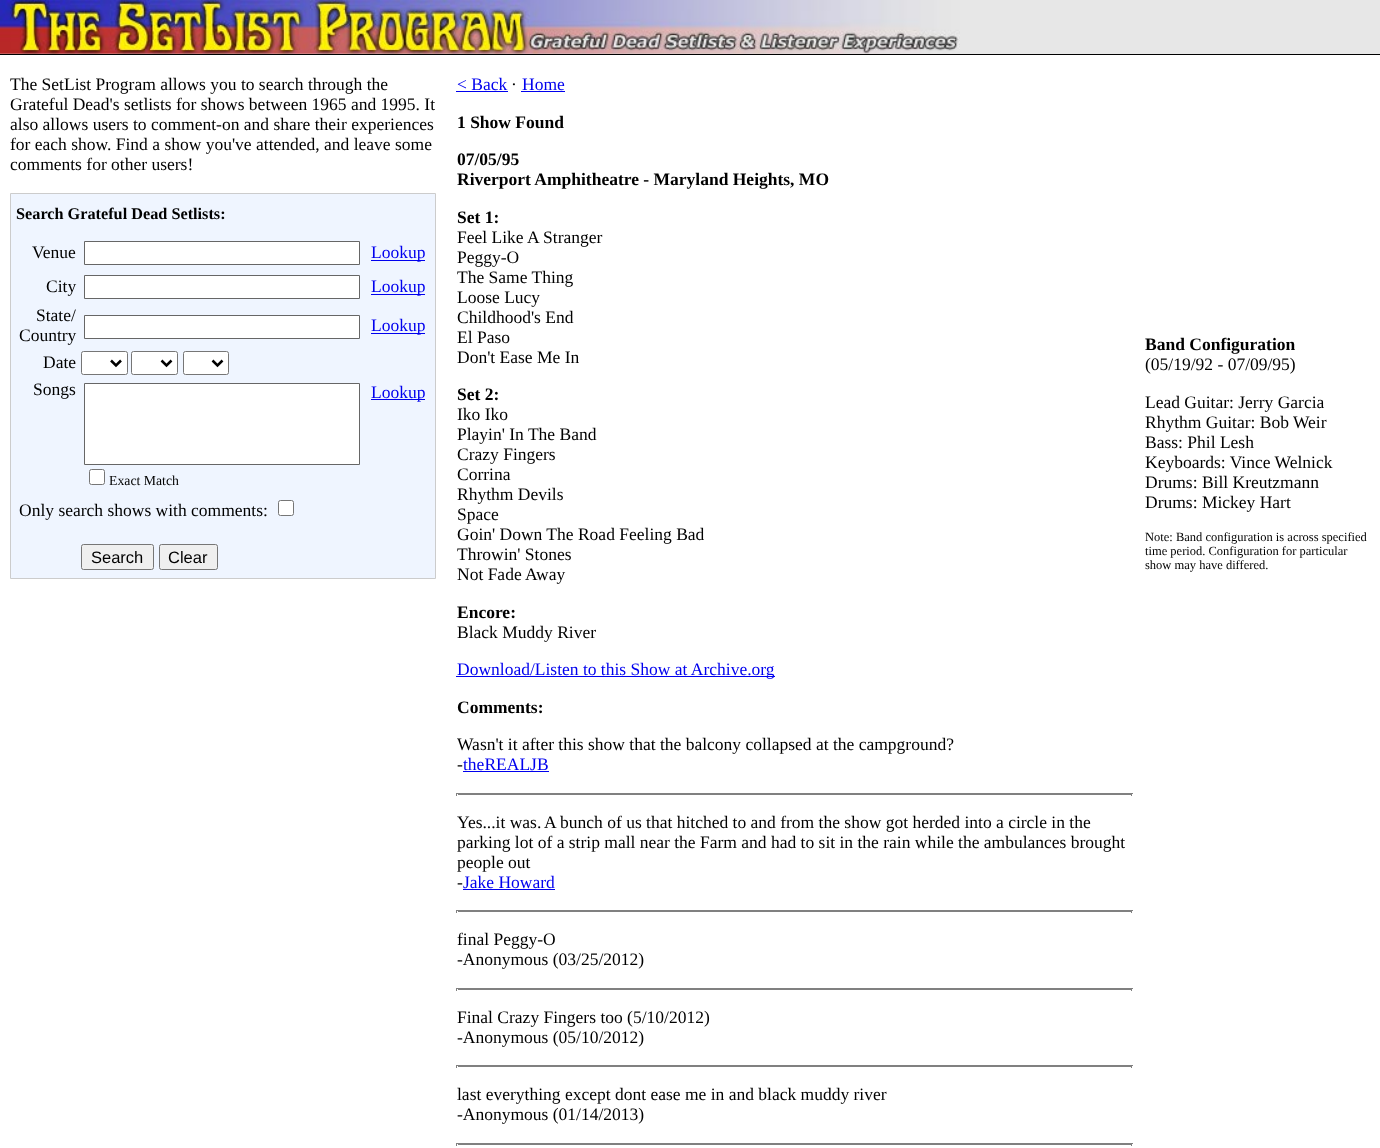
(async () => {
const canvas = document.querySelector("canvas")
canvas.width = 1380
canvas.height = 1148
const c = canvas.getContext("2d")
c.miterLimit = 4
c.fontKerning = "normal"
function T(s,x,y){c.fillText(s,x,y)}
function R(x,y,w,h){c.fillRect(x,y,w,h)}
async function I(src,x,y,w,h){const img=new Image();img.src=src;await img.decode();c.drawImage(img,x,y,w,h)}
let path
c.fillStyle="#fff"
R(0,0,1380,1148)
c.fillStyle="#e7e7e7"
R(0,0,1380,54)
await I("1.png",0,0,960,54)
c.fillStyle="#000"
R(0,54,1380,1)
c.font="17.5px Liberation Serif"
T("The SetList Program allows you to search through the",10,90)
T("Grateful Dead's setlists for shows between 1965 and 1995. It",10,110)
T("also allows users to comment-on and share their experiences",10,130)
T("for each show. Find a show you've attended, and leave some",10,150)
T("comments for other users!",10,170)
c.fillStyle="#eff5ff"
c.beginPath()
c.rect(10.5,193.5,425,385)
c.fill()
c.strokeStyle="#ccc"
c.stroke()
c.font="bold 16.25px Liberation Serif"
c.fillStyle="#000"
T("Search Grateful Dead Setlists:",16,219)
c.font="17.5px Liberation Serif"
T("Venue",32,258)
c.fillStyle="#fff"
c.beginPath()
c.rect(84.5,241.5,275,23)
c.fill()
c.strokeStyle="#666"
c.stroke()
c.fillStyle="#00e"
R(371,260,54,1)
T("Lookup",371,258)
c.fillStyle="#000"
T("City",46,292)
c.fillStyle="#fff"
c.beginPath()
c.rect(84.5,275.5,275,23)
c.fill()
c.stroke()
c.fillStyle="#00e"
R(371,294,54,1)
T("Lookup",371,292)
c.fillStyle="#000"
T("State/",36,321)
T("Country",19,341)
c.fillStyle="#fff"
c.beginPath()
c.rect(84.5,315.5,275,23)
c.fill()
c.stroke()
c.fillStyle="#00e"
R(371,333,54,1)
T("Lookup",371,331)
c.fillStyle="#000"
T("Date",43,368)
c.fillStyle="#fff"
c.beginPath()
c.roundRect(81.5,351.5,46,23,2)
c.fill()
c.strokeStyle="#767676"
c.stroke()
path = new Path2D("M111 360.5l5 5l5-5")
c.strokeStyle="#000"
c.lineWidth=2.5
c.stroke(path)
c.beginPath()
c.roundRect(131.5,351.5,46,23,2)
c.fill()
c.strokeStyle="#767676"
c.lineWidth=1
c.stroke()
path = new Path2D("M161.5 360.5l5 5l5-5")
c.strokeStyle="#000"
c.lineWidth=2.5
c.stroke(path)
c.beginPath()
c.roundRect(183.5,351.5,45,23,2)
c.fill()
c.strokeStyle="#767676"
c.lineWidth=1
c.stroke()
path = new Path2D("M212.5 360.5l5 5l5-5")
c.strokeStyle="#000"
c.lineWidth=2.5
c.stroke(path)
c.fillStyle="#000"
T("Songs",33,395)
c.fillStyle="#00e"
R(371,399,54,1)
T("Lookup",371,398)
c.fillStyle="#fff"
c.beginPath()
c.rect(84.5,383.5,275,81)
c.fill()
c.strokeStyle="#666"
c.lineWidth=1
c.stroke()
c.beginPath()
c.roundRect(89.5,469.5,15,15,2)
c.fill()
c.strokeStyle="#767676"
c.stroke()
c.font="13.75px Liberation Serif"
c.fillStyle="#000"
T("Exact Match",109,485)
c.font="17.5px Liberation Serif"
T("Only search shows with comments:",19,516)
c.fillStyle="#fff"
c.beginPath()
c.roundRect(278.5,500.5,15,15,2)
c.fill()
c.stroke()
c.fillStyle="#efefef"
c.beginPath()
c.roundRect(81.5,544.5,72,25,2)
c.fill()
c.stroke()
c.font="16.5px Liberation Sans"
c.fillStyle="#000"
T("Search",91,563)
c.fillStyle="#efefef"
c.beginPath()
c.roundRect(159.5,544.5,58,25,2)
c.fill()
c.stroke()
c.fillStyle="#000"
T("Clear",168,563)
c.font="17.5px Liberation Serif"
c.fillStyle="#00e"
T("< Back",457,90)
R(456,91,52,1)
c.fillStyle="#000"
T("·",511,90)
c.fillStyle="#00e"
T("Home",522,90)
R(521,91,44,1)
c.font="bold 17.5px Liberation Serif"
c.fillStyle="#000"
T("1 Show Found",457,128)
T("07/05/95",457,165)
T("Riverport Amphitheatre - Maryland Heights, MO",457,185)
T("Set 1:",457,223)
c.font="17.5px Liberation Serif"
T("Feel Like A Stranger",457,243)
T("Peggy-O",457,263)
T("The Same Thing",457,283)
T("Loose Lucy",457,303)
T("Childhood's End",457,323)
T("El Paso",457,343)
T("Don't Ease Me In",457,363)
c.font="bold 17.5px Liberation Serif"
T("Set 2:",457,400)
c.font="17.5px Liberation Serif"
T("Iko Iko",457,420)
T("Playin' In The Band",457,440)
T("Crazy Fingers",457,460)
T("Corrina",457,480)
T("Rhythm Devils",457,500)
T("Space",457,520)
T("Goin' Down The Road Feeling Bad",457,540)
T("Throwin' Stones",457,560)
T("Not Fade Away",457,580)
c.font="bold 17.5px Liberation Serif"
T("Encore:",457,618)
c.font="17.5px Liberation Serif"
T("Black Muddy River",457,638)
c.fillStyle="#00e"
R(456,676,319,1)
T("Download/Listen to this Show at Archive.org",457,675)
c.font="bold 17.5px Liberation Serif"
c.fillStyle="#000"
T("Comments:",457,713)
c.font="17.5px Liberation Serif"
T("Wasn't it after this show that the balcony collapsed at the campground?",457,750)
T("-",457,770)
c.fillStyle="#00e"
T("theREALJB",463,770)
R(463,771,86,1)
c.fillStyle="#808080"
R(458,794,673,1)
R(456,793,677,1)
R(1131,793,1,3)
R(456,793,1,3)
c.fillStyle="#000"
T("Yes...it was.",457,828)
T("A bunch of us that hitched to and from the show got herded into a circle in the",544,828)
T("parking lot of a strip mall near the Farm and had to sit in the rain while the ambulances brought",457,848)
T("people out",457,868)
T("-",457,888)
c.fillStyle="#00e"
T("Jake Howard",463,888)
R(463,889,92,1)
c.fillStyle="#808080"
R(458,911,673,1)
R(456,910,677,1)
R(1131,910,1,3)
R(456,910,1,3)
c.fillStyle="#000"
T("final Peggy-O",457,945)
T("-Anonymous (03/25/2012)",457,965)
c.fillStyle="#808080"
R(458,989,673,1)
R(456,988,677,1)
R(1131,988,1,3)
R(456,988,1,3)
c.fillStyle="#000"
T("Final Crazy Fingers too (5/10/2012)",457,1023)
T("-Anonymous (05/10/2012)",457,1043)
c.fillStyle="#808080"
R(458,1066,673,1)
R(456,1065,677,1)
R(1131,1065,1,3)
R(456,1065,1,3)
c.fillStyle="#000"
T("last everything except dont ease me in and black muddy river",457,1100)
T("-Anonymous (01/14/2013)",457,1120)
c.fillStyle="#808080"
R(458,1144,673,1)
R(456,1143,677,1)
R(1131,1143,1,3)
R(456,1143,1,3)
c.font="bold 17.5px Liberation Serif"
c.fillStyle="#000"
T("Band Configuration",1145,350)
c.font="17.5px Liberation Serif"
T("(05/19/92 - 07/09/95)",1145,370)
T("Lead Guitar: Jerry Garcia",1145,408)
T("Rhythm Guitar: Bob Weir",1145,428)
T("Bass: Phil Lesh",1145,448)
T("Keyboards: Vince Welnick",1145,468)
T("Drums: Bill Kreutzmann",1145,488)
T("Drums: Mickey Hart",1145,508)
c.font="12.5px Liberation Serif"
T("Note: Band configuration is across specified",1145,541)
T("time period. Configuration for particular",1145,555)
T("show may have differed.",1145,569)
})()
